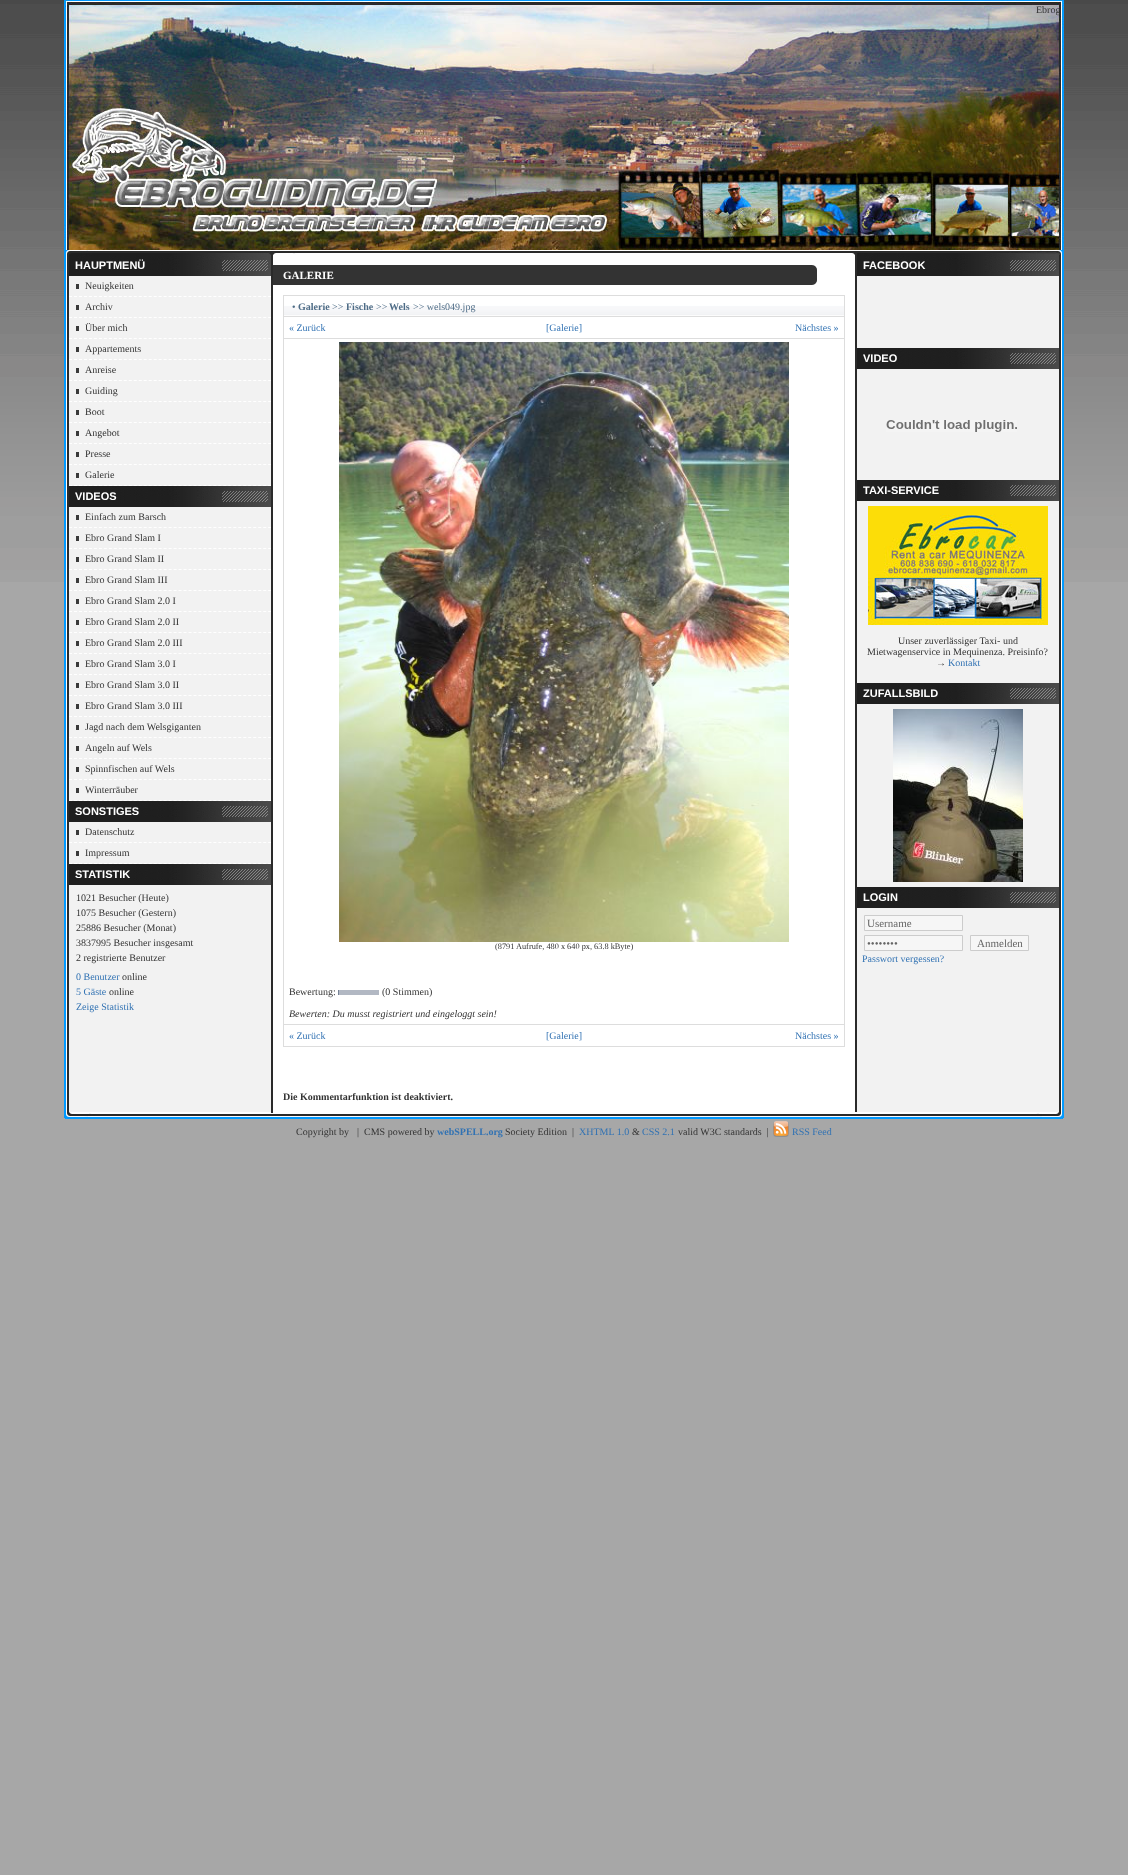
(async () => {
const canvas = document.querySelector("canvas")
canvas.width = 1128
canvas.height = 1875
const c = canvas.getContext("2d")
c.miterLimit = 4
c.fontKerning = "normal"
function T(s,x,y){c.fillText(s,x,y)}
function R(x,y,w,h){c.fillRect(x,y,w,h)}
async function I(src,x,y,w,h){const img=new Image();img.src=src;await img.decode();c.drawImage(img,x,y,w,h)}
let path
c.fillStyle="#a7a7a7"
R(0,0,1128,1875)
await I("1.png",0,0,1128,582)
await I("2.png",64,0,1000,250)
c.font="10px Liberation Serif"
c.fillStyle="#333"
T("Ebrog",1036,13)
await I("3.png",64,250,1000,5)
await I("4.png",64,255,5,857)
c.fillStyle="#f2f2f2"
R(69,276,202,836)
await I("5.png",69,255,202,21)
c.font="bold 11px Liberation Sans"
c.fillStyle="#fff"
T("HAUPTMENÜ",75,269)
c.fillStyle="#3a3a3a"
R(76,284,3,5)
path = new Path2D("M69 296.5h202")
c.strokeStyle="#fff"
c.setLineDash([3,1.98])
c.stroke(path)
c.font="10px Liberation Serif"
c.fillStyle="#333"
T("Neuigkeiten",85,289)
c.fillStyle="#3a3a3a"
R(76,305,3,5)
path = new Path2D("M69 317.5h202")
c.stroke(path)
c.fillStyle="#333"
T("Archiv",85,310)
c.fillStyle="#3a3a3a"
R(76,326,3,5)
path = new Path2D("M69 338.5h202")
c.stroke(path)
c.fillStyle="#333"
T("Über mich",85,331)
c.fillStyle="#3a3a3a"
R(76,347,3,5)
path = new Path2D("M69 359.5h202")
c.stroke(path)
c.fillStyle="#333"
T("Appartements",85,352)
c.fillStyle="#3a3a3a"
R(76,368,3,5)
path = new Path2D("M69 380.5h202")
c.stroke(path)
c.fillStyle="#333"
T("Anreise",85,373)
c.fillStyle="#3a3a3a"
R(76,389,3,5)
path = new Path2D("M69 401.5h202")
c.stroke(path)
c.fillStyle="#333"
T("Guiding",85,394)
c.fillStyle="#3a3a3a"
R(76,410,3,5)
path = new Path2D("M69 422.5h202")
c.stroke(path)
c.fillStyle="#333"
T("Boot",85,415)
c.fillStyle="#3a3a3a"
R(76,431,3,5)
path = new Path2D("M69 443.5h202")
c.stroke(path)
c.fillStyle="#333"
T("Angebot",85,436)
c.fillStyle="#3a3a3a"
R(76,452,3,5)
path = new Path2D("M69 464.5h202")
c.stroke(path)
c.fillStyle="#333"
T("Presse",85,457)
c.fillStyle="#3a3a3a"
R(76,473,3,5)
path = new Path2D("M69 485.5h202")
c.stroke(path)
c.fillStyle="#333"
T("Galerie",85,478)
await I("5.png",69,486,202,21)
c.font="bold 11px Liberation Sans"
c.fillStyle="#fff"
T("VIDEOS",75,500)
c.fillStyle="#3a3a3a"
R(76,515,3,5)
path = new Path2D("M69 527.5h202")
c.stroke(path)
c.font="10px Liberation Serif"
c.fillStyle="#333"
T("Einfach zum Barsch",85,520)
c.fillStyle="#3a3a3a"
R(76,536,3,5)
path = new Path2D("M69 548.5h202")
c.stroke(path)
c.fillStyle="#333"
T("Ebro Grand Slam I",85,541)
c.fillStyle="#3a3a3a"
R(76,557,3,5)
path = new Path2D("M69 569.5h202")
c.stroke(path)
c.fillStyle="#333"
T("Ebro Grand Slam II",85,562)
c.fillStyle="#3a3a3a"
R(76,578,3,5)
path = new Path2D("M69 590.5h202")
c.stroke(path)
c.fillStyle="#333"
T("Ebro Grand Slam III",85,583)
c.fillStyle="#3a3a3a"
R(76,599,3,5)
path = new Path2D("M69 611.5h202")
c.stroke(path)
c.fillStyle="#333"
T("Ebro Grand Slam 2.0 I",85,604)
c.fillStyle="#3a3a3a"
R(76,620,3,5)
path = new Path2D("M69 632.5h202")
c.stroke(path)
c.fillStyle="#333"
T("Ebro Grand Slam 2.0 II",85,625)
c.fillStyle="#3a3a3a"
R(76,641,3,5)
path = new Path2D("M69 653.5h202")
c.stroke(path)
c.fillStyle="#333"
T("Ebro Grand Slam 2.0 III",85,646)
c.fillStyle="#3a3a3a"
R(76,662,3,5)
path = new Path2D("M69 674.5h202")
c.stroke(path)
c.fillStyle="#333"
T("Ebro Grand Slam 3.0 I",85,667)
c.fillStyle="#3a3a3a"
R(76,683,3,5)
path = new Path2D("M69 695.5h202")
c.stroke(path)
c.fillStyle="#333"
T("Ebro Grand Slam 3.0 II",85,688)
c.fillStyle="#3a3a3a"
R(76,704,3,5)
path = new Path2D("M69 716.5h202")
c.stroke(path)
c.fillStyle="#333"
T("Ebro Grand Slam 3.0 III",85,709)
c.fillStyle="#3a3a3a"
R(76,725,3,5)
path = new Path2D("M69 737.5h202")
c.stroke(path)
c.fillStyle="#333"
T("Jagd nach dem Welsgiganten",85,730)
c.fillStyle="#3a3a3a"
R(76,746,3,5)
path = new Path2D("M69 758.5h202")
c.stroke(path)
c.fillStyle="#333"
T("Angeln auf Wels",85,751)
c.fillStyle="#3a3a3a"
R(76,767,3,5)
path = new Path2D("M69 779.5h202")
c.stroke(path)
c.fillStyle="#333"
T("Spinnfischen auf Wels",85,772)
c.fillStyle="#3a3a3a"
R(76,788,3,5)
path = new Path2D("M69 800.5h202")
c.stroke(path)
c.fillStyle="#333"
T("Winterräuber",85,793)
await I("5.png",69,801,202,21)
c.font="bold 11px Liberation Sans"
c.fillStyle="#fff"
T("SONSTIGES",75,815)
c.fillStyle="#3a3a3a"
R(76,830,3,5)
path = new Path2D("M69 842.5h202")
c.stroke(path)
c.font="10px Liberation Serif"
c.fillStyle="#333"
T("Datenschutz",85,835)
c.fillStyle="#3a3a3a"
R(76,851,3,5)
path = new Path2D("M69 863.5h202")
c.stroke(path)
c.fillStyle="#333"
T("Impressum",85,856)
await I("5.png",69,864,202,21)
c.font="bold 11px Liberation Sans"
c.fillStyle="#fff"
T("STATISTIK",75,878)
c.font="10px Liberation Serif"
c.fillStyle="#333"
T("1021 Besucher (Heute)",76,901)
T("1075 Besucher (Gestern)",76,916)
T("25886 Besucher (Monat)",76,931)
T("3837995 Besucher insgesamt",76,946)
T("2 registrierte Benutzer",76,961)
c.fillStyle="#3172b3"
T("0 Benutzer",76,980)
c.fillStyle="#333"
T("online",122,980)
c.fillStyle="#3172b3"
T("5 Gäste",76,995)
c.fillStyle="#333"
T("online",109,995)
c.fillStyle="#3172b3"
T("Zeige Statistik",76,1010)
c.fillStyle="#2a2a2a"
R(271,255,2,857)
c.fillStyle="#fff"
R(273,255,582,857)
c.fillStyle="#333"
R(273,265,539,20)
await I("6.png",812,265,5,20)
c.font="bold 11px Liberation Serif"
c.fillStyle="#fff"
T("GALERIE",283,279)
c.fillStyle="#ddd"
R(283,295,562,752)
await I("7.png",284,296,560,20)
c.font="10px Liberation Serif"
c.fillStyle="#4e6c86"
T("•",292,310)
c.font="bold 10px Liberation Serif"
T("Galerie",298,310)
c.font="10px Liberation Serif"
T(">>",332,310)
c.font="bold 10px Liberation Serif"
T("Fische",346,310)
c.font="10px Liberation Serif"
T(">>",376,310)
c.font="bold 10px Liberation Serif"
T("Wels",389,310)
c.font="10px Liberation Serif"
T(">> wels049.jpg",413,310)
c.fillStyle="#fff"
R(284,317,560,21)
c.fillStyle="#3172b3"
T("« Zurück",289,331)
T("[Galerie]",546,331)
T("Nächstes »",795,331)
c.fillStyle="#fff"
R(284,339,560,685)
await I("8.png",339,342,450,600)
c.font="8.3px Liberation Serif"
c.fillStyle="#333"
T("(8791 Aufrufe, 480 x 640 px, 63.8 kByte)",495,949)
c.font="10px Liberation Serif"
T("Bewertung:",289,995)
await I("9.png",338,990,1,5)
c.fillStyle="#b2b8c3"
R(339,990,40,5)
c.fillStyle="#333"
T("(0 Stimmen)",382,995)
c.font="italic 10px Liberation Serif"
T("Bewerten: Du musst registriert und eingeloggt sein!",289,1017)
c.fillStyle="#fff"
R(284,1025,560,21)
c.font="10px Liberation Serif"
c.fillStyle="#3172b3"
T("« Zurück",289,1039)
T("[Galerie]",546,1039)
T("Nächstes »",795,1039)
c.font="bold 10px Liberation Serif"
c.fillStyle="#333"
T("Die Kommentarfunktion ist deaktiviert.",283,1100)
c.fillStyle="#2a2a2a"
R(855,255,2,857)
c.fillStyle="#f2f2f2"
R(857,276,202,836)
await I("5.png",857,255,202,21)
c.font="bold 11px Liberation Sans"
c.fillStyle="#fff"
T("FACEBOOK",863,269)
await I("5.png",857,348,202,21)
T("VIDEO",863,362)
await I("10.png",886,420,131,12)
await I("5.png",857,480,202,21)
T("TAXI-SERVICE",863,494)
await I("11.png",868,506,180,119)
c.font="10px Liberation Serif"
c.fillStyle="#333"
T("Unser zuverlässiger Taxi- und",898,644)
T("Mietwagenservice in Mequinenza. Preisinfo?",867,655)
T("→",936,666)
c.fillStyle="#3172b3"
T("Kontakt",948,666)
await I("5.png",857,683,202,21)
c.font="bold 11px Liberation Sans"
c.fillStyle="#fff"
T("ZUFALLSBILD",863,697)
await I("12.png",893,709,130,173)
await I("5.png",857,887,202,21)
T("LOGIN",863,901)
c.fillStyle="#f6f6f6"
c.beginPath()
c.rect(864.5,915.5,98,15)
c.fill()
c.strokeStyle="#ccc"
c.setLineDash([])
c.stroke()
c.font="11px Liberation Serif"
c.fillStyle="#666"
T("Username",867,927)
c.fillStyle="#f6f6f6"
c.beginPath()
c.rect(864.5,935.5,98,15)
c.fill()
c.stroke()
c.fillStyle="#666"
T("••••••••",867,947)
c.fillStyle="#f6f6f6"
c.beginPath()
c.rect(970.5,935.5,58,15)
c.fill()
c.stroke()
c.fillStyle="#666"
T("Anmelden",977,947)
c.font="10px Liberation Serif"
c.fillStyle="#3172b3"
T("Passwort vergessen?",862,962)
await I("13.png",1059,255,5,857)
await I("14.png",64,1112,1000,7)
c.fillStyle="#333"
T("Copyright by",296,1135)
T("|  CMS powered by",357,1135)
c.font="bold 10px Liberation Serif"
c.fillStyle="#3172b3"
T("webSPELL.org",437,1135)
c.font="10px Liberation Serif"
c.fillStyle="#333"
T("Society Edition  |",505,1135)
c.fillStyle="#3172b3"
T("XHTML 1.0",579,1135)
c.fillStyle="#333"
T("&",632,1135)
c.fillStyle="#3172b3"
T("CSS 2.1",642,1135)
c.fillStyle="#333"
T("valid W3C standards  |",678,1135)
await I("15.png",773,1121,16,16)
c.fillStyle="#3172b3"
T("RSS Feed",792,1135)
})()
